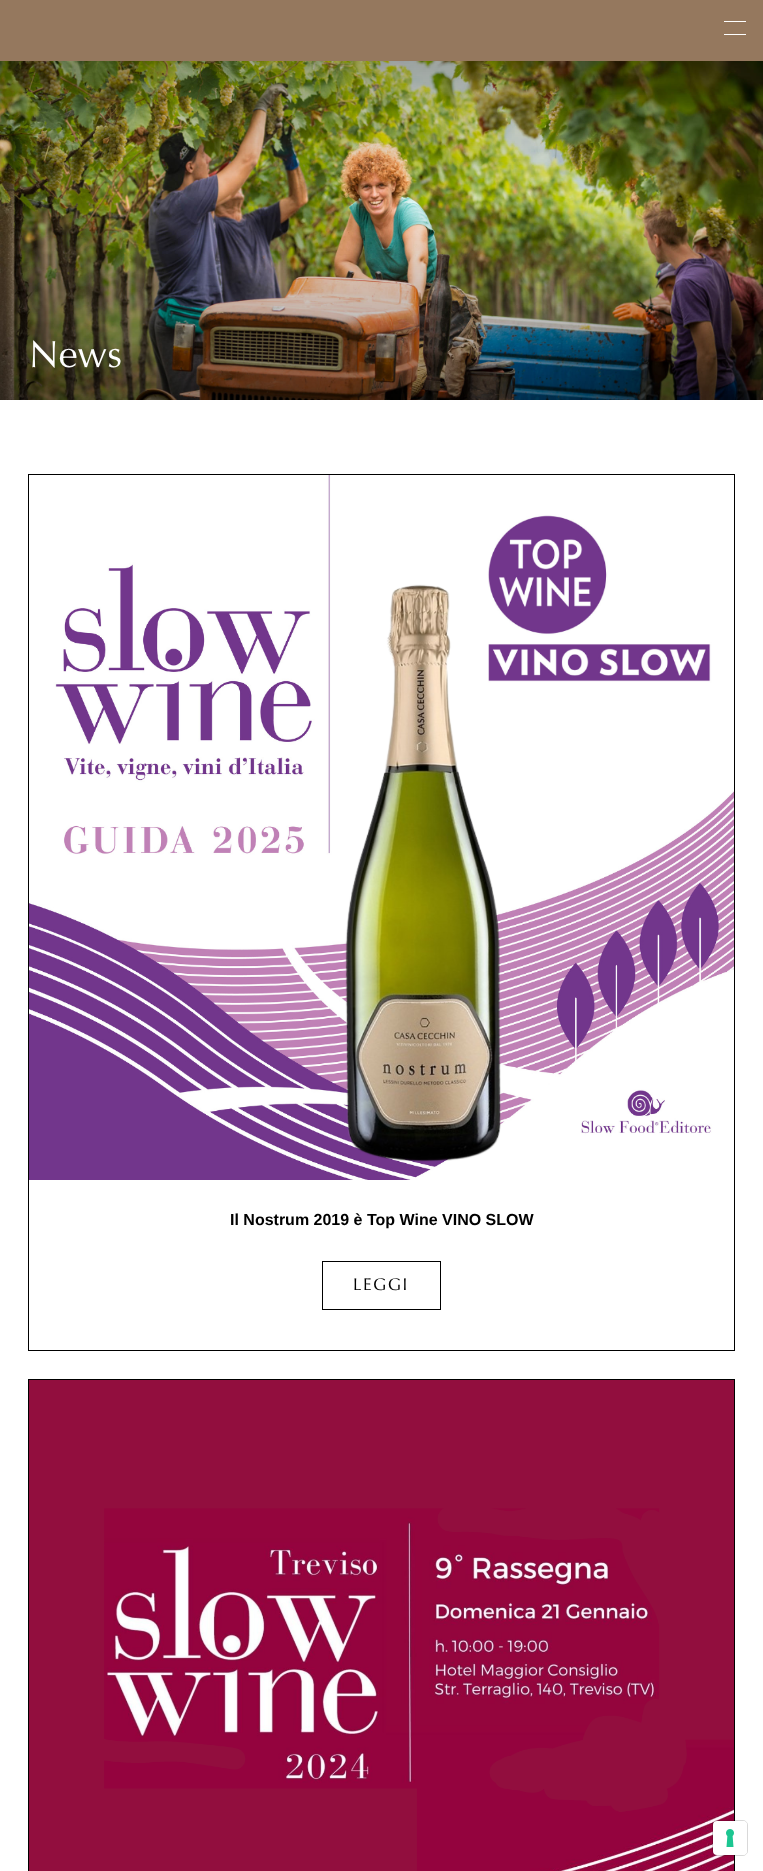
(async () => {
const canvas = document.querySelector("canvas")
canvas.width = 763
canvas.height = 1871
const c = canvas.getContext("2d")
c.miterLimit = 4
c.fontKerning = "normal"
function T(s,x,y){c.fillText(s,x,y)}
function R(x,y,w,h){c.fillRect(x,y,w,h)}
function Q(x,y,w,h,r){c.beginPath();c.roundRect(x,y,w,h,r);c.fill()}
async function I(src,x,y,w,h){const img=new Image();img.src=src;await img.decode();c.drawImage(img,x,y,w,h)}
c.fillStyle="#fff"
R(0,0,763,1871)
c.fillStyle="#95785e"
R(0,0,763,61)
c.fillStyle="#fff"
R(724,21,22,1)
R(724,34,22,1)
await I("1.png",0,61,763,339)
c.font="38px Optima"
T("News",29,367)
c.strokeStyle="#000"
c.strokeRect(28.5,474.5,706,876)
await I("2.png",29,475,705,705)
c.font="bold 16px Liberation Sans"
c.fillStyle="#000"
T("Il Nostrum 2019 è Top Wine VINO SLOW",230,1225)
c.strokeRect(322.5,1261.5,118,48)
c.letterSpacing="1.5px"
c.font="17px Optima"
T("LEGGI",353,1290)
c.strokeRect(28.5,1379.5,706,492)
await I("3.png",29,1380,705,491)
c.beginPath()
c.roundRect(712.5,1820.5,35,35,4.5)
c.strokeStyle="#00000026"
c.stroke()
c.fillStyle="#fff"
Q(713,1821,34,34,4)
await I("4.png",726,1829,8,18)
})()
